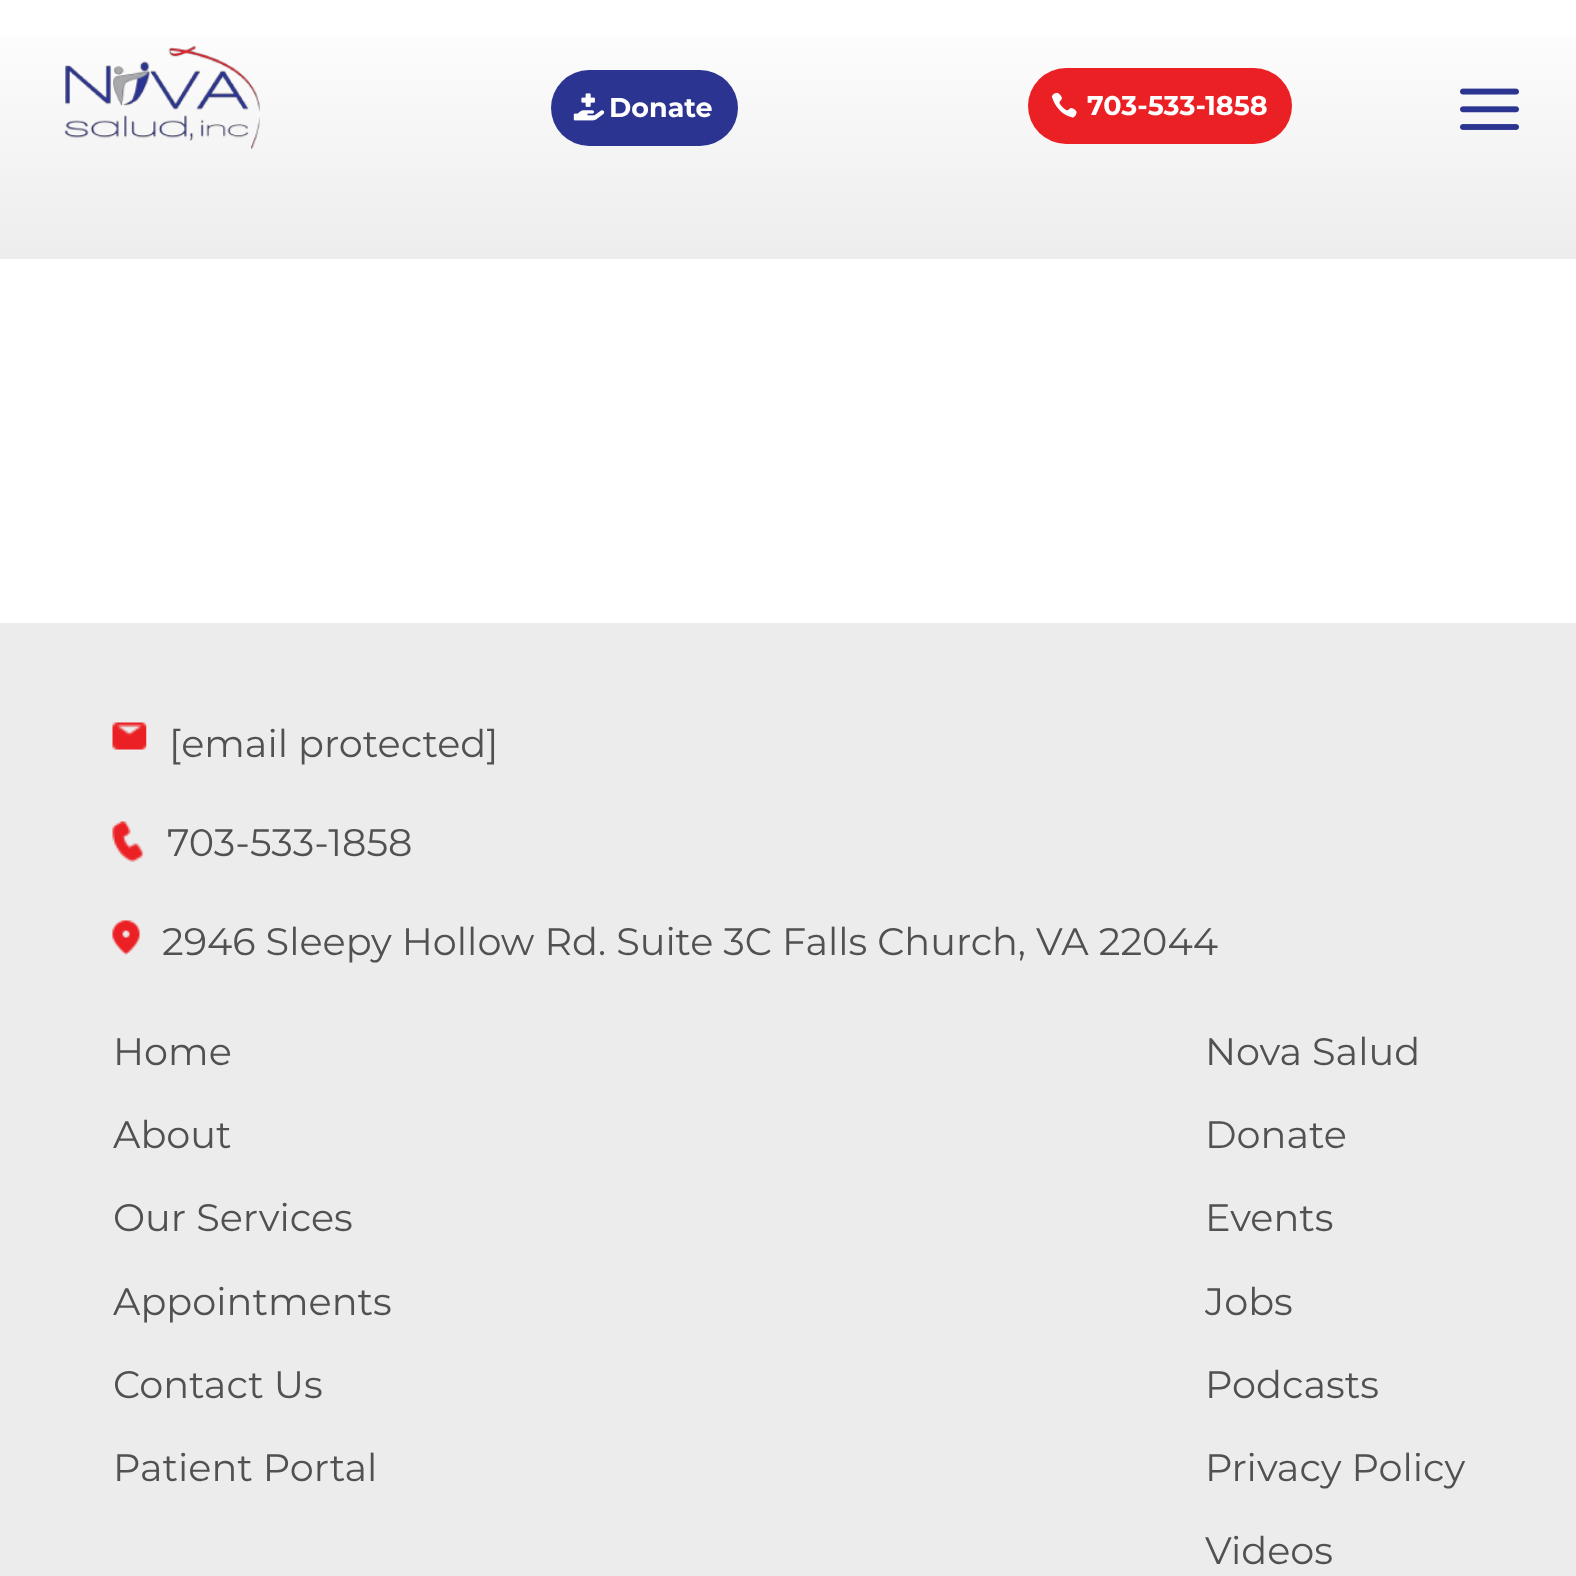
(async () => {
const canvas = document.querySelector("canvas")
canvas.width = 1576
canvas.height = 1576
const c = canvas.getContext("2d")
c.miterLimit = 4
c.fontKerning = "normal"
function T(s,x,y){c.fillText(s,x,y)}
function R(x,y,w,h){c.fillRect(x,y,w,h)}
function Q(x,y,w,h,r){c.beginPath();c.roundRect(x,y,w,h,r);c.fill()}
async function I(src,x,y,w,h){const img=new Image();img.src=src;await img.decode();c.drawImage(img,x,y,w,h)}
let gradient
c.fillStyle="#fff"
R(0,0,1576,1576)
gradient = c.createLinearGradient(789,259,789,0)
gradient.addColorStop(0,"#ededed")
gradient.addColorStop(1,"#fff")
c.fillStyle = gradient
R(0,36,1576,223)
await I("1.png",64,46,196,104)
c.fillStyle="#2b3491"
Q(551,70,187,76,38)
await I("2.png",573,93,32,28)
c.font="100 27px 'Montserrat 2'"
c.fillStyle="#fff"
T("Donate",609,117)
c.fillStyle="#eb2024"
Q(1028,68,264,76,38)
await I("3.png",1051,92,26,26)
c.fillStyle="#fff"
T("703-533-1858",1087,115)
await I("4.png",1460,88,59,42)
c.fillStyle="#ececec"
R(0,623,1576,953)
await I("5.png",112,722,35,28)
c.font="100 38.25px Montserrat"
c.fillStyle="#515151"
T("[email protected]",169,757)
await I("6.png",112,821,32,41)
T("703-533-1858",167,856)
await I("7.png",112,920,28,35)
T("2946 Sleepy Hollow Rd. Suite 3C Falls Church, VA 22044",162,955)
T("Home",113,1065)
T("About",113,1148)
T("Our Services",113,1231)
T("Appointments",113,1315)
T("Contact Us",113,1398)
T("Patient Portal",113,1481)
T("Nova Salud",1205,1065)
T("Donate",1205,1148)
T("Events",1205,1231)
T("Jobs",1205,1315)
T("Podcasts",1205,1398)
T("Privacy Policy",1205,1481)
T("Videos",1205,1564)
})()
